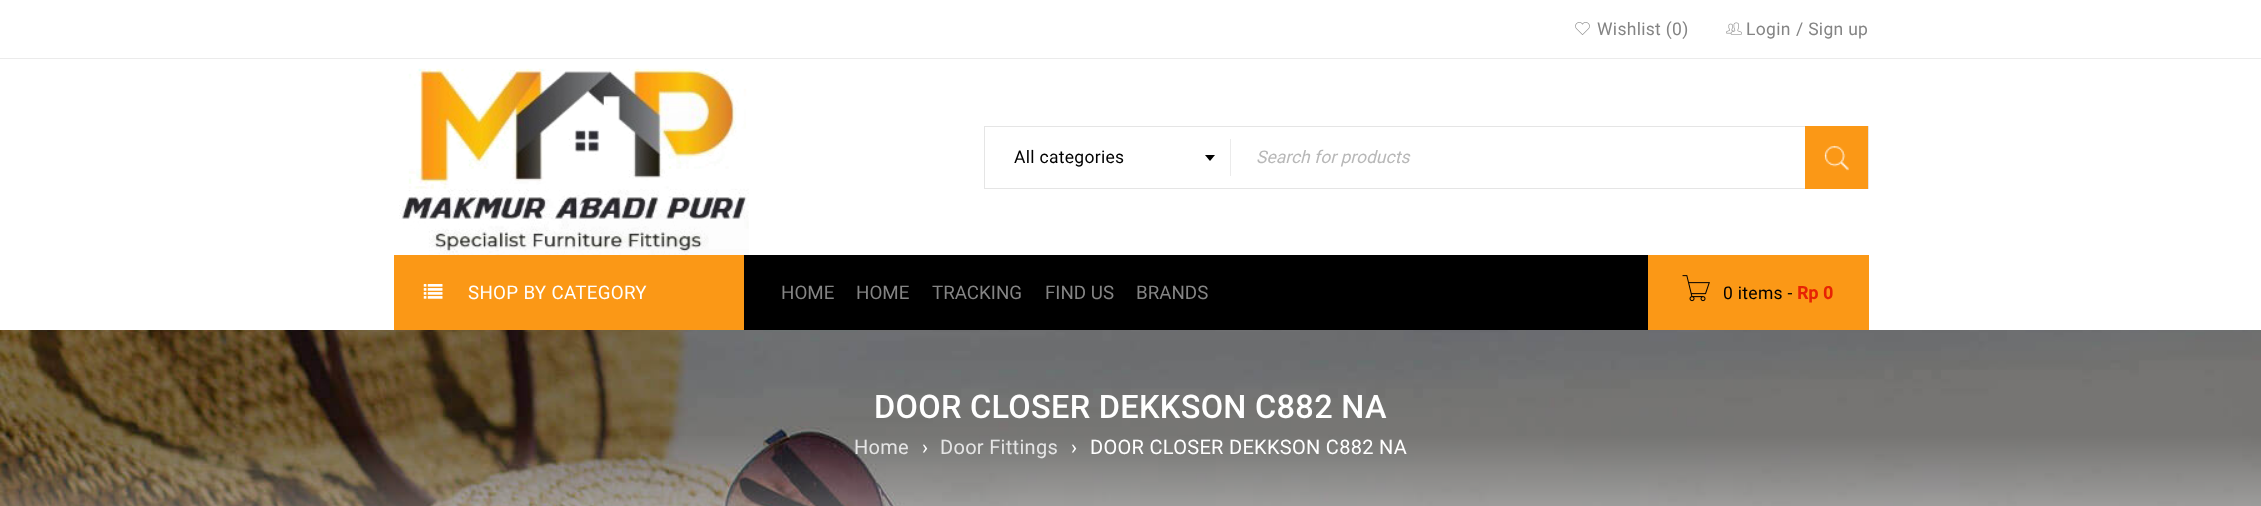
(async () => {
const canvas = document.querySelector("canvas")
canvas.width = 2261
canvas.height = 506
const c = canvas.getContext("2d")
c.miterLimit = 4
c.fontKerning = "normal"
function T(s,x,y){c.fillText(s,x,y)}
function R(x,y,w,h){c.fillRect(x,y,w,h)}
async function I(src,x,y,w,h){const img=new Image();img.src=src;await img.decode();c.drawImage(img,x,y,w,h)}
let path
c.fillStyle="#fff"
R(0,0,2261,506)
c.fillStyle="#ebebeb"
R(0,58,2261,1)
await I("1.png",1575,22,15,13)
c.letterSpacing="0.3px"
c.font="17.5px Roboto"
c.fillStyle="#848484"
T("Wishlist (0)",1597,35)
await I("2.png",1726,22,16,13)
T("Login",1746,35)
T("/ Sign up",1796,35)
await I("3.png",399,68,350,187)
c.strokeStyle="#e5e5e5"
c.strokeRect(984.5,126.5,884,62)
c.fillStyle="#000"
T("All categories",1014,163)
c.fillStyle="#ebebeb"
R(1230,139,1,37)
c.fillStyle="#000"
path = new Path2D("M1205 155h10l-5 6z")
c.fill(path)
c.letterSpacing="0px"
c.font="italic 17.5px Roboto"
c.fillStyle="#b8b8b8"
T("Search for products",1256,163)
c.fillStyle="#fb9816"
R(1805,126,63,63)
await I("4.png",1824,145,25,26)
c.fillStyle="#000"
R(744,255,904,75)
c.fillStyle="#fb9816"
R(394,255,350,75)
await I("5.png",423,284,20,15)
c.letterSpacing="0.3px"
c.font="18.75px Roboto"
c.fillStyle="#fff"
T("SHOP BY CATEGORY",468,299)
c.letterSpacing="0px"
c.fillStyle="#848484"
T("HOME",781,299)
T("HOME",856,299)
T("TRACKING",932,299)
T("FIND US",1045,299)
T("BRANDS",1136,299)
c.fillStyle="#fb9816"
R(1648,255,221,75)
await I("6.png",1682,275,28,27)
c.letterSpacing="0.3px"
c.font="17.5px Roboto"
c.fillStyle="#000"
T("0 items -",1723,299)
c.font="bold 17.5px Roboto"
c.fillStyle="#e72304"
T("Rp 0",1797,299)
await I("7.png",0,330,2261,176)
c.font="500 32.5px Roboto"
c.fillStyle="#fff"
T("DOOR CLOSER DEKKSON C882 NA",874,418)
c.font="20px Roboto"
c.fillStyle="#e5e5e5"
T("Home",854,454)
c.fillStyle="#fff"
T("›",922,454)
c.fillStyle="#e5e5e5"
T("Door Fittings",940,454)
c.fillStyle="#fff"
T("›",1071,454)
T("DOOR CLOSER DEKKSON C882 NA",1090,454)
})()
